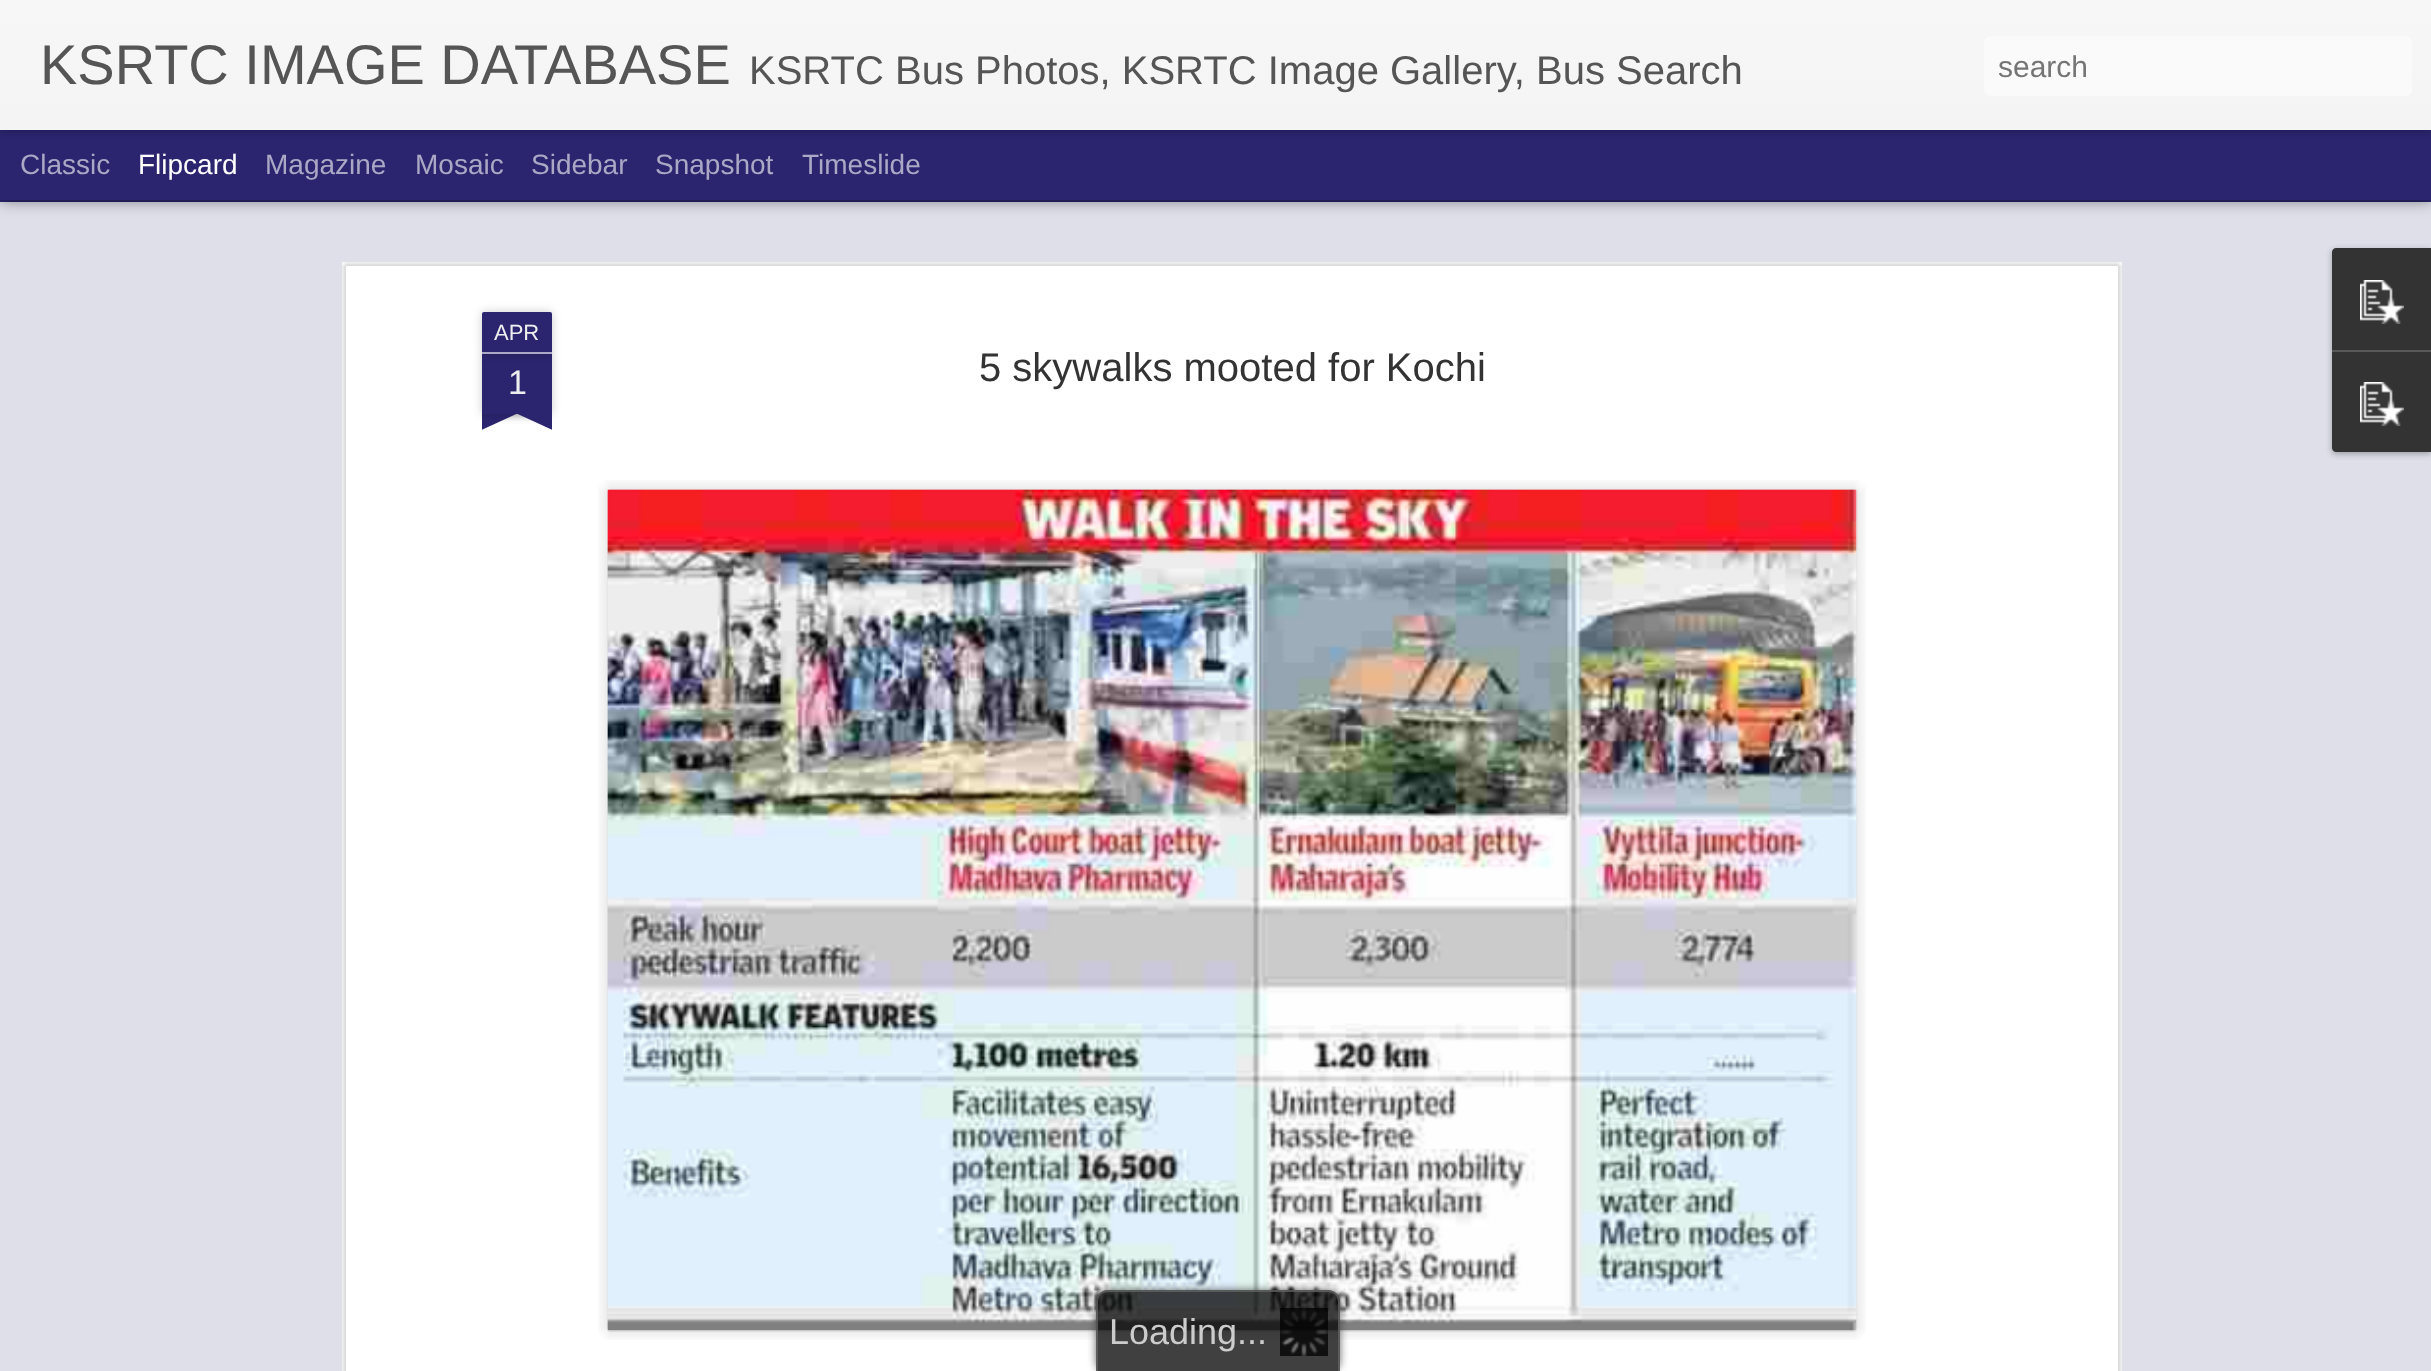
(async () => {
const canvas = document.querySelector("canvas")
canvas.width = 2431
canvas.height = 1371
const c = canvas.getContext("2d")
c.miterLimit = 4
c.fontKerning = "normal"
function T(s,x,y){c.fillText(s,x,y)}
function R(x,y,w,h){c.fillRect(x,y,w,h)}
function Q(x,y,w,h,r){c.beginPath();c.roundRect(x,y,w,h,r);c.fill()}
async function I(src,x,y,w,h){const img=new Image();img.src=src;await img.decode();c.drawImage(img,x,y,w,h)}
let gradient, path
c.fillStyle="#2b256f"
R(0,0,2431,1371)
c.fillStyle="#dfdfea"
R(0,202,2431,1169)
c.fillStyle="#00000080"
c.filter="blur(8px)"
c.beginPath()
c.rect(0,130,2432,70)
c.fill()
c.filter="none"
c.fillStyle="#2b256f"
R(0,130,2431,70)
c.fillStyle="#0000004d"
c.filter="blur(5px)"
c.beginPath()
c.rect(0,0,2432,130)
c.fill()
c.filter="none"
gradient = c.createLinearGradient(0,0,0,130)
gradient.addColorStop(0,"#f7f7f7")
gradient.addColorStop(1,"#f4f4f4")
c.fillStyle = gradient
R(0,0,2431,130)
c.font="56px Liberation Sans"
c.fillStyle="#555"
T("KSRTC IMAGE DATABASE",40,84)
c.font="40px Liberation Sans"
T("KSRTC Bus Photos, KSRTC Image Gallery, Bus Search",749,84)
c.fillStyle="#fafafa"
Q(1984,36,428,60,6)
c.font="30px Liberation Sans"
c.fillStyle="#757575"
T("search",1998,77)
c.font="28px Liberation Sans"
c.fillStyle="#aaa8c5"
T("Classic",20,174)
c.fillStyle="#fff"
T("Flipcard",138,174)
c.fillStyle="#aaa8c5"
T("Magazine",265,174)
T("Mosaic",415,174)
T("Sidebar",531,174)
T("Snapshot",655,174)
T("Timeslide",802,174)
c.fillStyle="#fff"
R(342,262,1780,1109)
await I("1.png",342,262,1780,1109)
c.fillStyle="#00000033"
c.filter="blur(5px)"
c.beginPath()
c.rect(482,354,70,60)
c.fill()
c.filter="none"
c.fillStyle="#2b256f"
R(482,354,70,60)
c.fillStyle="#00000033"
c.filter="blur(5px)"
c.beginPath()
c.roundRect(482,312,70,42,2)
c.fill()
c.filter="none"
c.fillStyle="#2b256f"
c.beginPath()
c.roundRect(482,312,70,42,[2,2,0,0])
c.fill()
c.fillStyle="#aaa8c5"
R(482,352,70,2)
c.font="22px Liberation Sans"
c.fillStyle="#eee"
T("APR",494,340)
c.font="34px Liberation Sans"
T("1",508,394)
c.save()
c.beginPath()
c.rect(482,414,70,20)
c.clip()
c.fillStyle="#00000033"
c.filter="blur(5px)"
c.beginPath()
c.rect(464,394,100,20)
c.fill()
c.filter="none"
c.restore()
c.save()
c.beginPath()
c.rect(482,414,70,20)
c.clip()
c.fillStyle="#2b256f"
path = new Path2D("M464 416l91-42l9 18l-91 42z")
c.fill(path)
c.restore()
c.save()
c.beginPath()
c.rect(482,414,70,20)
c.clip()
c.fillStyle="#00000033"
c.filter="blur(5px)"
c.beginPath()
c.rect(470,394,100,20)
c.fill()
c.filter="none"
c.restore()
c.save()
c.beginPath()
c.rect(482,414,70,20)
c.clip()
c.fillStyle="#2b256f"
path = new Path2D("M479 374l91 42l-9 18l-91-42z")
c.fill(path)
c.restore()
c.font="40px Liberation Sans"
c.fillStyle="#333"
T("5 skywalks mooted for Kochi",979,381)
await I("2.png",598,480,1268,860)
await I("3.png",607,489,1251,843)
c.fillStyle="#0000004d"
c.filter="blur(3px)"
c.beginPath()
c.roundRect(2332,250,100,204,4)
c.fill()
c.filter="none"
c.fillStyle="#333"
path = new Path2D("M2336 248h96v102h-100v-98c0-2 2-4 4-4z")
c.fill(path)
await I("4.png",2360,280,44,44)
path = new Path2D("M2332 350h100v102h-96c-2 0-4-2-4-4z")
c.fill(path)
c.fillStyle="#585858"
R(2332,350,99,2)
await I("4.png",2360,382,44,44)
c.save()
path = new Path2D("M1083 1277h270v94h-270zm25 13h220c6.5 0 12 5.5 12 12v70h-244v-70c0-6.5 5.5-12 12-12z")
c.clip(path,"evenodd")
c.fillStyle="#333333bf"
c.filter="blur(4px)"
c.beginPath()
c.roundRect(1096,1290,244,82,12)
c.fill()
c.filter="none"
c.restore()
c.fillStyle="#000000bf"
path = new Path2D("M1108 1290h220c6.5 0 12 5.5 12 12v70h-244v-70c0-6.5 5.5-12 12-12z")
c.fill(path)
c.fillStyle="#666666bf"
path = new Path2D("M1108 1290h220c7 0 12 5 12 12v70h-244v-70c0-7 5-12 12-12zm0 2h220c6 0 10 4 10 10v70h-240v-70c0-6 4-10 10-10z")
c.fill(path,"evenodd")
await I("5.png",1280,1308,48,48)
c.font="36px Liberation Sans"
c.fillStyle="#ccc"
T("Loading",1109,1344)
T("...",1237,1344)
})()
